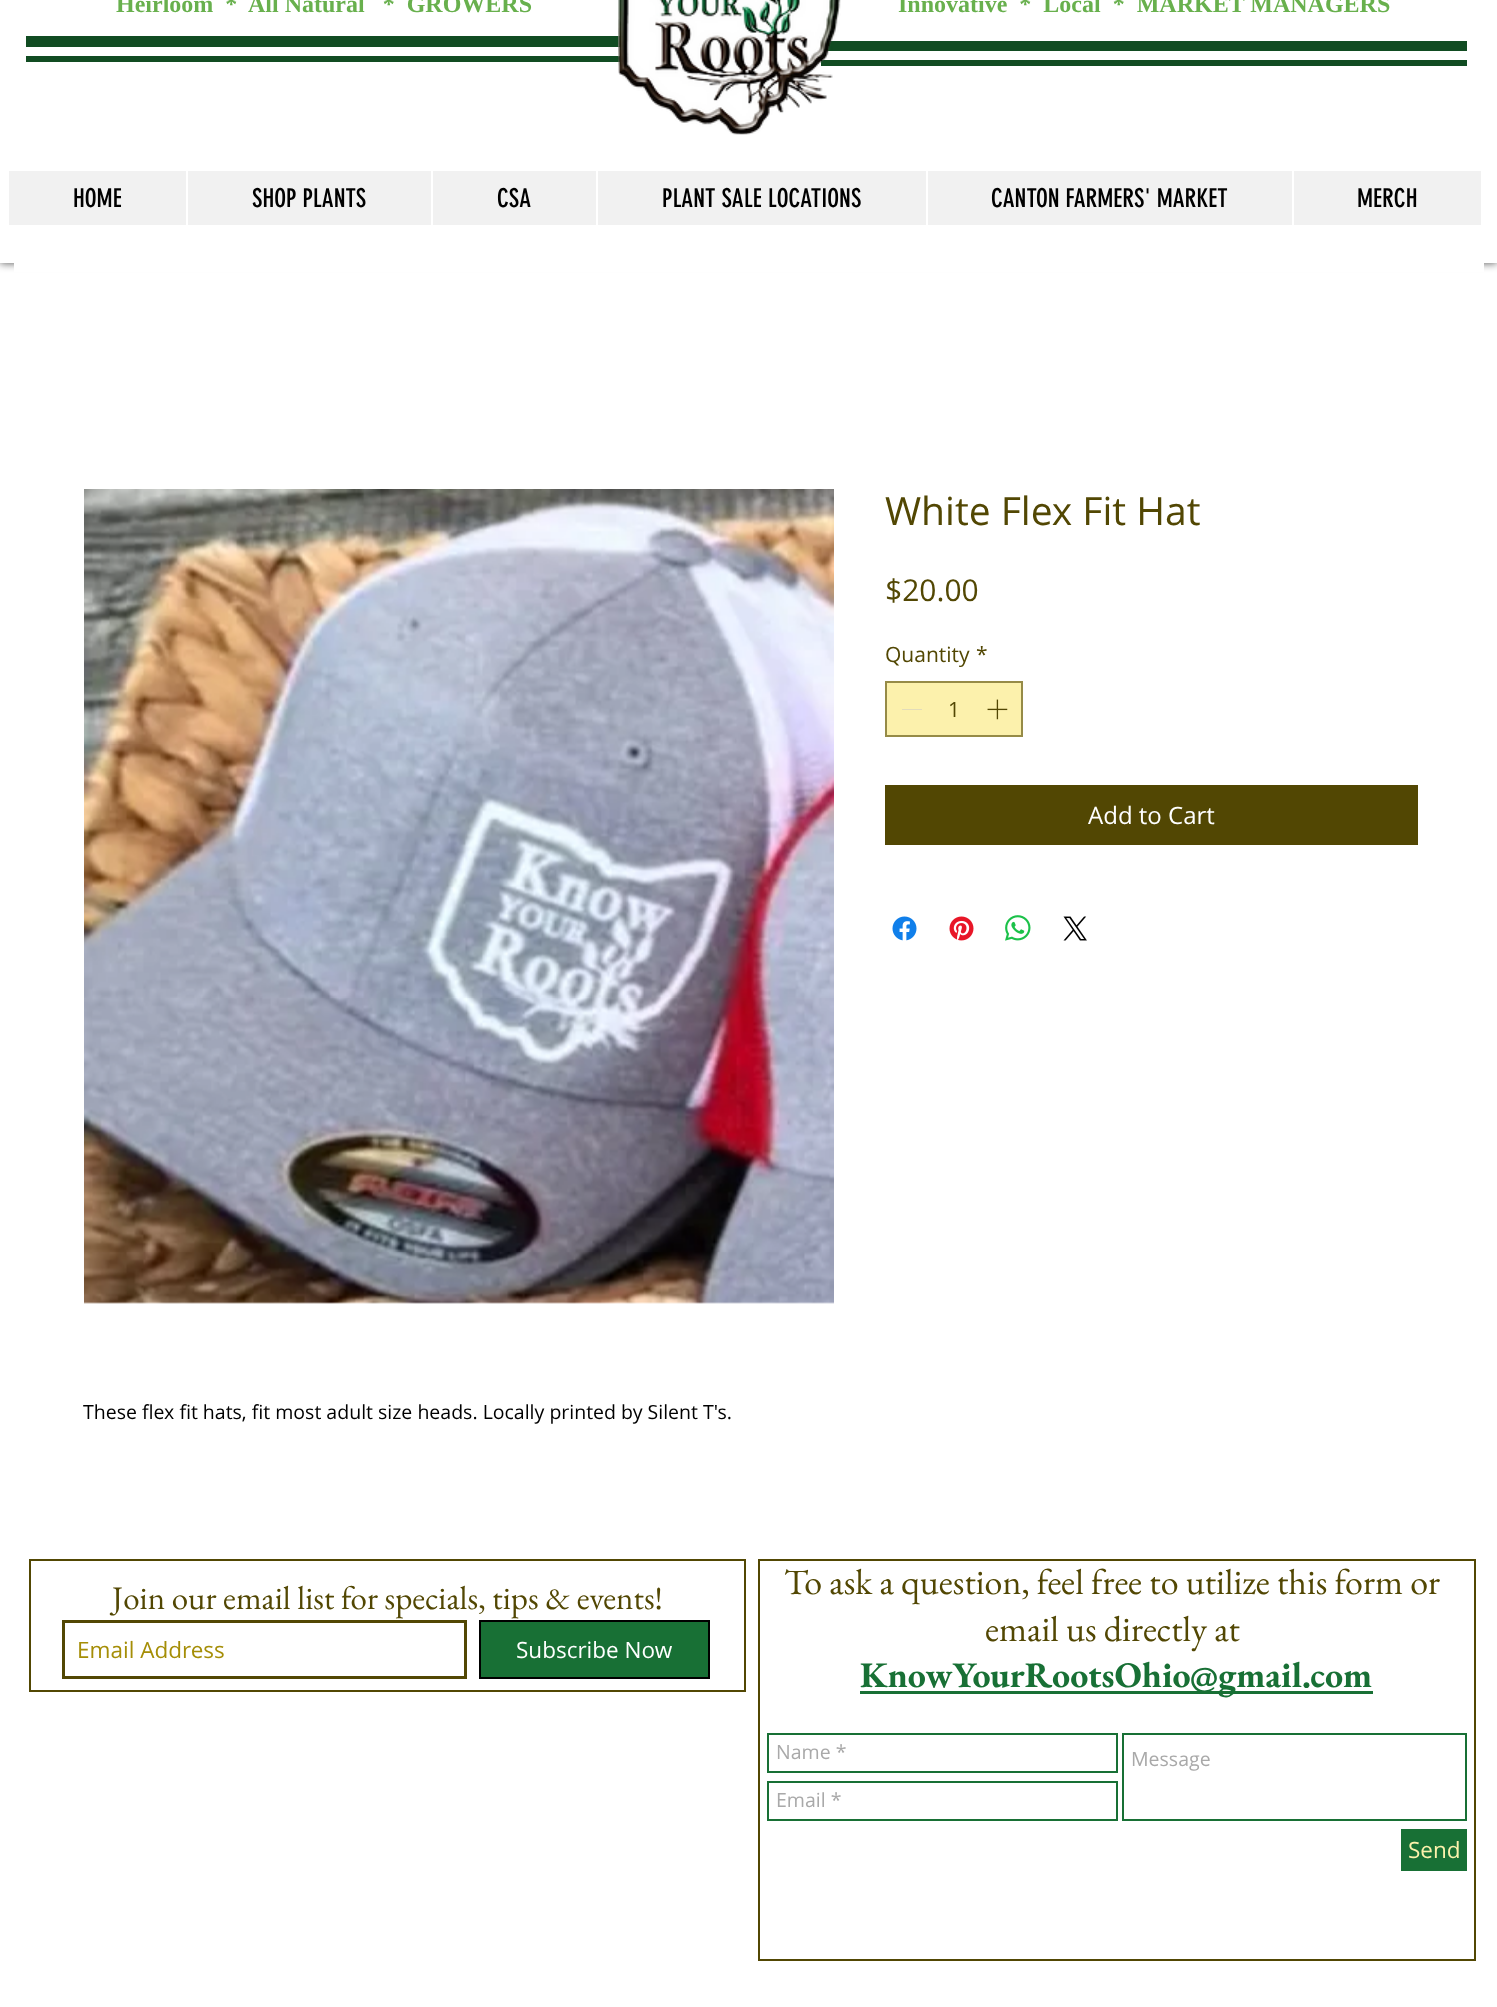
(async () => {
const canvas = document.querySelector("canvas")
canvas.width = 1497
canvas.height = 2007
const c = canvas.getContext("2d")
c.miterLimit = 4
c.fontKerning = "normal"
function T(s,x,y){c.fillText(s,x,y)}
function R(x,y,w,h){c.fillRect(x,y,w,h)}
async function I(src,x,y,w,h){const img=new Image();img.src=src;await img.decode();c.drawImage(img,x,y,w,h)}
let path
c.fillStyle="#fff"
R(0,0,1497,2007)
c.save()
path = new Path2D("M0 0h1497v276h-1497zm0-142h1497v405h-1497z")
c.clip(path,"evenodd")
c.fillStyle="#000000b3"
c.filter="blur(4px)"
c.beginPath()
c.rect(0,-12,1497,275)
c.fill()
c.filter="none"
c.restore()
c.fillStyle="#ffffff99"
R(0,262,1497,1)
c.font="bold 24px Liberation Serif"
c.fillStyle="#68b04d"
T("Heirloom  *  All Natural   *  GROWERS",116,12)
c.fillStyle="#114c22"
R(26,36,597,11)
R(26,56,597,6)
R(824,41,643,10)
R(821,60,646,6)
await I("1.png",618,0,223,135)
c.fillStyle="#68b04d"
T("Innovative  *  Local  *  MARKET MANAGERS",898,12)
c.fillStyle="#f1f1f1"
R(9,171,1472,54)
c.font="25.5px 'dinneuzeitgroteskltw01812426'"
c.fillStyle="#000"
T("HOME",73,207)
c.fillStyle="#fff"
R(186,171,2,54)
c.fillStyle="#000"
T("SHOP PLANTS",252,207)
c.fillStyle="#fff"
R(431,171,2,54)
c.fillStyle="#000"
T("CSA",497,207)
c.fillStyle="#fff"
R(596,171,2,54)
c.fillStyle="#000"
T("PLANT SALE LOCATIONS",662,207)
c.fillStyle="#fff"
R(926,171,2,54)
c.fillStyle="#000"
T("CANTON FARMERS' MARKET",991,207)
c.fillStyle="#fff"
R(1292,171,2,54)
c.fillStyle="#000"
T("MERCH",1357,207)
c.fillStyle="#fff"
R(14,263,1470,9)
c.font="39px Open Sans"
c.fillStyle="#524703"
T("White Flex Fit Hat",885,525)
c.font="30px Open Sans"
T("$20.00",885,601)
c.font="21px Open Sans"
T("Quantity",885,662)
T("*",976,662)
c.fillStyle="#fcf1ac"
c.beginPath()
c.rect(886,682,136,54)
c.fill()
c.strokeStyle="#968b47"
c.lineWidth=2
c.stroke()
c.fillStyle="#e2dcba"
R(902,709,20,1)
c.fillStyle="#524703"
T("1",948,717)
await I("2.png",987,699,21,21)
R(885,785,533,60)
c.font="24px Open Sans"
c.fillStyle="#fff"
T("Add to Cart",1088,824)
await I("3.png",892,916,25,25)
await I("4.png",949,916,25,25)
await I("5.png",1005,915,26,26)
await I("6.png",1063,916,24,25)
await I("7.png",84,489,750,815)
c.font="19.5px Open Sans"
c.fillStyle="#000"
T("These flex fit hats, fit most adult size heads. Locally printed by Silent T's.",83,1419)
c.strokeStyle="#524703"
c.strokeRect(30,1560,715,131)
c.font="33px EB Garamond"
c.fillStyle="#524703"
T("Join our email list for specials, tips & events!",112,1609)
c.lineWidth=3
c.strokeRect(63.5,1621.5,402,56)
c.font="22.5px Open Sans"
c.fillStyle="#a58e07"
T("Email Address",77,1658)
c.fillStyle="#187035"
c.beginPath()
c.rect(480,1621,229,57)
c.fill()
c.strokeStyle="#000"
c.lineWidth=2
c.stroke()
c.fillStyle="#fff"
T("Subscribe Now",516,1658)
c.strokeStyle="#524703"
c.strokeRect(759,1560,716,400)
c.font="36px EB Garamond"
c.fillStyle="#524703"
T("To ask a question, feel free to utilize this form or",784,1594)
T("email us directly at",985,1641)
c.fillStyle="#187035"
R(860,1691,513,3)
c.font="bold 36px EB Garamond"
T("KnowYourRootsOhio@gmail.com",860,1687)
c.strokeStyle="#187035"
c.strokeRect(768,1734,349,38)
c.font="19.5px Open Sans"
c.fillStyle="#a9a9a9"
T("Name *",776,1759)
c.strokeRect(1123,1734,343,86)
T("Message",1131,1766)
c.strokeRect(768,1782,349,38)
T("Email *",776,1807)
c.fillStyle="#187035"
R(1401,1829,66,42)
c.font="22.5px Open Sans"
c.fillStyle="#fcf1ac"
T("Send",1408,1858)
})()
